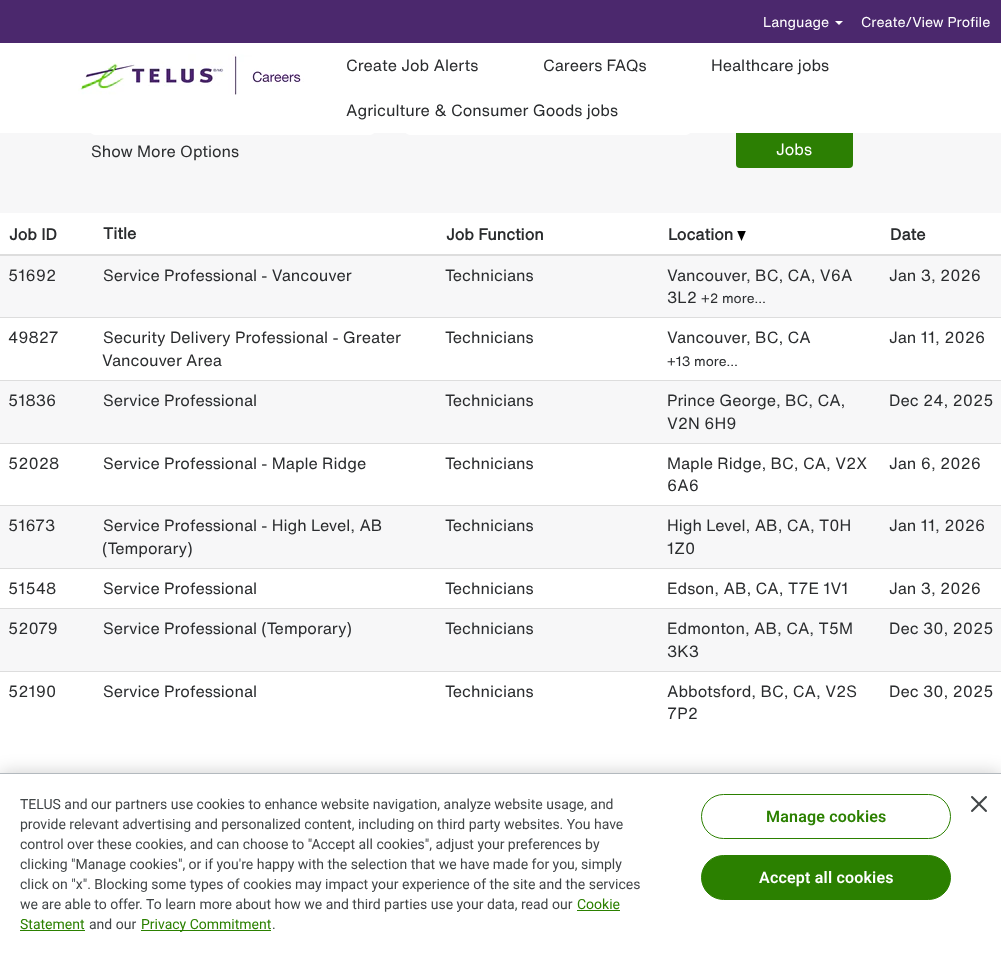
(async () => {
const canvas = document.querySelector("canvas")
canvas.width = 1001
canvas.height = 954
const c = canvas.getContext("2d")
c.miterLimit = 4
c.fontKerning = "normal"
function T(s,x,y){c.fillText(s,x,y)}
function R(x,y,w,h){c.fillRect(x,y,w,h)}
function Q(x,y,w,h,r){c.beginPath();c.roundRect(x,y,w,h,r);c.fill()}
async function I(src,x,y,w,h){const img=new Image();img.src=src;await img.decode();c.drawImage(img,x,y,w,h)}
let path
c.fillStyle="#fff"
R(0,0,1001,954)
c.fillStyle="#f7f7f8"
R(0,133,1001,80)
c.fillStyle="#2c7f03"
Q(736,108,117,60,4)
c.fillStyle="#fff"
R(736,108,117,25)
c.fillStyle="#4b286d"
R(0,0,1001,43)
c.font="14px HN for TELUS"
c.fillStyle="#fff"
T("Language",763,27)
path = new Path2D("M835 21h8l-4 4z")
c.fill(path)
T("Create/View Profile",861,27)
await I("1.png",78,54,226,41)
c.font="16px HN for TELUS"
c.fillStyle="#2a2c2e"
T("Create Job Alerts",346,71)
T("Careers FAQs",543,71)
T("Healthcare jobs",711,71)
c.fillStyle="#fff"
Q(90,108,285,27,5)
Q(405,108,286,27,5)
c.fillStyle="#2a2c2e"
T("Agriculture & Consumer Goods jobs",346,116)
T("Show More Options",91,157)
c.fillStyle="#fff"
T("Jobs",776,155)
c.font="bold 16px HN for TELUS"
c.fillStyle="#2a2c2e"
T("Job ID",9,240)
T("Title",103,239)
T("Job Function",446,240)
T("Location",668,240)
await I("2.png",737,231,9,10)
c.fillStyle="#ddd"
R(0,254,1001,2)
c.fillStyle="#2a2c2e"
T("Date",890,240)
c.fillStyle="#f7f7f8"
R(0,256,1001,61)
c.font="16px HN for TELUS"
c.fillStyle="#2a2c2e"
T("51692",8,281)
T("Service Professional - Vancouver",103,281)
T("Technicians",445,281)
T("Vancouver, BC, CA, V6A",667,281)
T("3L2",667,303)
c.font="13.5px HN for TELUS"
T("+2 more…",701,303)
c.font="16px HN for TELUS"
T("Jan 3, 2026",889,281)
T("49827",8,343)
T("Security Delivery Professional - Greater",103,343)
T("Vancouver Area",102,366)
T("Technicians",445,343)
T("Vancouver, BC, CA",667,343)
c.font="13.5px HN for TELUS"
T("+13 more…",667,366)
c.fillStyle="#ddd"
R(0,317,1001,1)
c.font="16px HN for TELUS"
c.fillStyle="#2a2c2e"
T("Jan 11, 2026",889,343)
c.fillStyle="#f7f7f8"
R(0,381,1001,62)
c.fillStyle="#2a2c2e"
T("51836",8,406)
T("Service Professional",103,406)
T("Technicians",445,406)
T("Prince George, BC, CA,",667,406)
T("V2N 6H9",667,429)
c.fillStyle="#ddd"
R(0,380,1001,1)
c.fillStyle="#2a2c2e"
T("Dec 24, 2025",889,406)
T("52028",8,469)
T("Service Professional - Maple Ridge",103,469)
T("Technicians",445,469)
T("Maple Ridge, BC, CA, V2X",667,469)
T("6A6",667,491)
c.fillStyle="#ddd"
R(0,443,1001,1)
c.fillStyle="#2a2c2e"
T("Jan 6, 2026",889,469)
c.fillStyle="#f7f7f8"
R(0,506,1001,62)
c.fillStyle="#2a2c2e"
T("51673",8,531)
T("Service Professional - High Level, AB",103,531)
T("(Temporary)",102,554)
T("Technicians",445,531)
T("High Level, AB, CA, T0H",667,531)
T("1Z0",667,554)
c.fillStyle="#ddd"
R(0,505,1001,1)
c.fillStyle="#2a2c2e"
T("Jan 11, 2026",889,531)
T("51548",8,594)
T("Service Professional",103,594)
T("Technicians",445,594)
T("Edson, AB, CA, T7E 1V1",667,594)
c.fillStyle="#ddd"
R(0,568,1001,1)
c.fillStyle="#2a2c2e"
T("Jan 3, 2026",889,594)
c.fillStyle="#f7f7f8"
R(0,609,1001,62)
c.fillStyle="#2a2c2e"
T("52079",8,634)
T("Service Professional (Temporary)",103,634)
T("Technicians",445,634)
T("Edmonton, AB, CA, T5M",667,634)
T("3K3",667,657)
c.fillStyle="#ddd"
R(0,608,1001,1)
c.fillStyle="#2a2c2e"
T("Dec 30, 2025",889,634)
T("52190",8,697)
T("Service Professional",103,697)
T("Technicians",445,697)
T("Abbotsford, BC, CA, V2S",667,697)
T("7P2",667,719)
c.fillStyle="#ddd"
R(0,671,1001,1)
c.fillStyle="#2a2c2e"
T("Dec 30, 2025",889,697)
c.fillStyle="#00000033"
c.filter="blur(9px)"
c.beginPath()
c.rect(0,773,1001,181)
c.fill()
c.filter="none"
c.fillStyle="#fff"
R(0,774,1001,180)
c.fillStyle="#b3b9be"
R(0,773,1001,1)
c.font="14px Roboto"
c.fillStyle="#414547"
T("TELUS and our partners use cookies to enhance website navigation, analyze website usage, and",20,809)
T("provide relevant advertising and personalized content, including on third party websites. You have",20,829)
T("control over these cookies, and can choose to \"Accept all cookies\", adjust your preferences by",20,849)
T("clicking \"Manage cookies\", or if you're happy with the selection that we have made for you, simply",20,869)
T("click on \"x\". Blocking some types of cookies may impact your experience of the site and the services",20,889)
T("we are able to offer. To learn more about how we and third parties use your data, read our",20,909)
c.fillStyle="#2b8000"
T("Cookie",577,909)
R(577,910,43,1)
T("Statement",20,929)
R(20,930,65,1)
c.fillStyle="#414547"
T("and our",89,929)
c.fillStyle="#2b8000"
R(141,930,130,1)
T("Privacy Commitment",141,929)
c.fillStyle="#414547"
T(".",272,929)
c.beginPath()
c.roundRect(701.5,794.5,249,44,22)
c.strokeStyle="#2b8000"
c.stroke()
c.letterSpacing="0.2px"
c.font="600 16px Roboto"
c.fillStyle="#2b8000"
T("Manage cookies",766,822)
c.beginPath()
c.roundRect(701.5,855.5,249,44,22)
c.fill()
c.stroke()
c.fillStyle="#fff"
T("Accept all cookies",759,883)
await I("3.png",971,796,16,16)
})()
